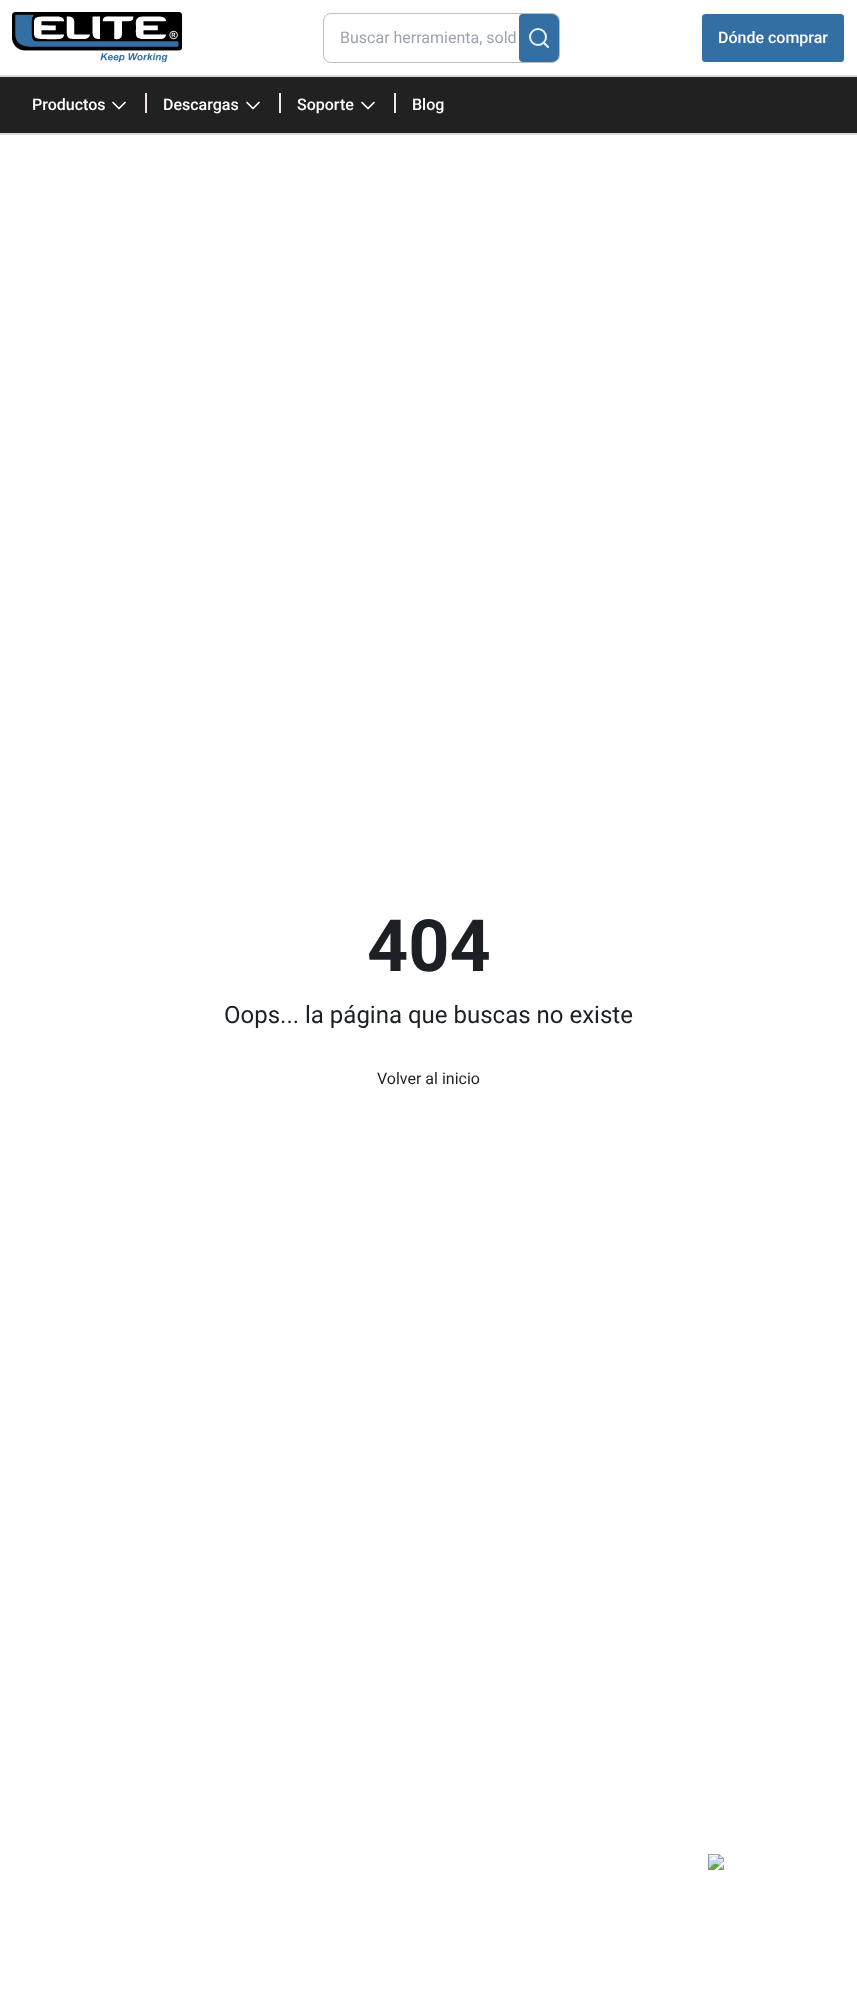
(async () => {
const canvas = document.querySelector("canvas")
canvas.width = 857
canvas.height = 2014
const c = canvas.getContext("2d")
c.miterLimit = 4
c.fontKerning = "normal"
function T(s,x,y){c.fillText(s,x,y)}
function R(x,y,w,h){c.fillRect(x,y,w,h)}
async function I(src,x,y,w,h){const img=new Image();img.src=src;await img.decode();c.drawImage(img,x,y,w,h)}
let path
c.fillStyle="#fff"
R(0,0,857,2014)
await I("1.png",12,12,171,51)
c.beginPath()
c.roundRect(323.5,13.5,236,49,7.5)
c.strokeStyle="#bdbdbd"
c.stroke()
c.font="16px Roboto"
c.fillStyle="#9ca3af"
T("Buscar herramienta, sold",340,43)
c.fillStyle="#346fa4"
c.beginPath()
c.roundRect(519,14,40,48,[4,7,7,4])
c.fill()
c.beginPath()
c.arc(538,37,8,0,7)
c.strokeStyle="#ebf1f6"
c.lineWidth=2
c.stroke()
path = new Path2D("M548 47l-4.5-4.5")
c.lineCap="round"
c.lineJoin="round"
c.stroke(path)
c.beginPath()
c.roundRect(701.5,13.5,143,49,3.5)
c.fill()
c.strokeStyle="#fff"
c.lineWidth=1
c.lineJoin="miter"
c.stroke()
c.font="500 16px Roboto"
c.fillStyle="#fff"
T("Dónde comprar",718,43)
c.fillStyle="#212121"
R(0,77,857,56)
c.fillStyle="#dadada"
R(0,75,857,2)
R(0,133,857,2)
c.fillStyle="#fff"
T("Productos",32,110)
path = new Path2D("M125 102.5l-6 6l-6-6")
c.lineWidth=1.7
c.lineJoin="round"
c.stroke(path)
c.fillStyle="#efe6e6"
R(145,93,2,20)
c.fillStyle="#fff"
T("Descargas",163,110)
path = new Path2D("M259 102.5l-6 6l-6-6")
c.stroke(path)
c.fillStyle="#efe6e6"
R(279,93,2,20)
c.fillStyle="#fff"
T("Soporte",297,110)
path = new Path2D("M374 102.5l-6 6l-6-6")
c.stroke(path)
c.fillStyle="#efe6e6"
R(394,93,2,20)
c.fillStyle="#fff"
T("Blog",412,110)
c.font="bold 72px Roboto"
c.fillStyle="#1c2024"
T("404",367,971)
c.font="24px Roboto"
T("Oops... la página que buscas no existe",224,1023)
c.font="16px Roboto"
T("Volver al inicio",377,1084)
await I("2.png",708,1854,16,16)
})()
